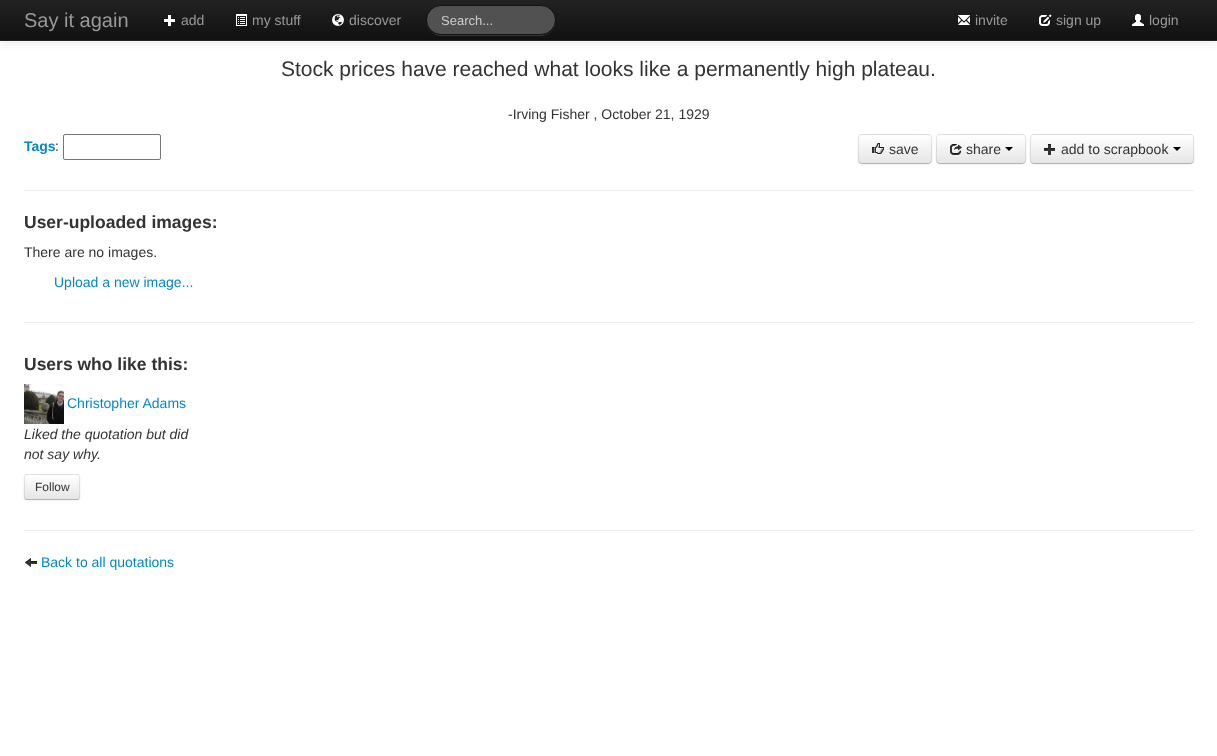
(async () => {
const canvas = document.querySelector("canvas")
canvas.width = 1217
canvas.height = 756
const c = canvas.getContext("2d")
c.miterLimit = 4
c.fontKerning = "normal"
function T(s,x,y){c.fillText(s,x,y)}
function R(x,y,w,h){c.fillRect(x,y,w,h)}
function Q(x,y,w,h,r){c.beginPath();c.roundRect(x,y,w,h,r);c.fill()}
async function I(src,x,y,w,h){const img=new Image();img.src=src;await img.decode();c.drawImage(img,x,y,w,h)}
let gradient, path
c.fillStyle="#fff"
R(0,0,1217,756)
c.fillStyle="#0000001a"
c.filter="blur(5px)"
c.beginPath()
c.rect(0,1,1217,41)
c.fill()
c.filter="none"
gradient = c.createLinearGradient(609,0,609,40)
gradient.addColorStop(0,"#222")
gradient.addColorStop(1,"#111")
c.fillStyle = gradient
R(0,0,1217,40)
c.fillStyle="#252525"
R(0,40,1217,1)
c.font="20px Liberation Sans"
c.fillStyle="#999"
T("Say it again",24,27)
await I("1.png",164,15,11,11)
c.font="14px Liberation Sans"
T("add",181,25)
await I("2.png",236,14,11,12)
T("my stuff",252,25)
await I("3.png",332,14,12,12)
T("discover",349,25)
c.fillStyle="#363636"
path = new Path2D("M426 20v1c0 8 7 15 15 15h100c8 0 15-7 15-15v-1c0 9-7 15-15 15h-100c-8 0-15-6-15-15z")
c.fill(path)
c.fillStyle="#515151"
c.beginPath()
c.roundRect(426.5,5.5,129,29,14.5)
c.fill()
c.strokeStyle="#111"
c.stroke()
c.font="13px Liberation Sans"
c.fillStyle="#ccc"
T("Search...",441,25)
await I("4.png",958,15,12,10)
c.font="14px Liberation Sans"
c.fillStyle="#999"
T("invite",975,25)
await I("5.png",1039,14,13,12)
T("sign up",1056,25)
await I("6.png",1132,14,12,12)
T("login",1149,25)
c.font="21px Liberation Sans"
c.fillStyle="#333"
T("Stock prices have reached what looks like a permanently high plateau.",281,76)
c.font="14px Liberation Sans"
T("-Irving Fisher , October 21, 1929",508,119)
c.font="bold 14px Liberation Sans"
c.fillStyle="#08c"
T("Tags",24,151)
c.font="14px Liberation Sans"
c.fillStyle="#333"
T(":",55,151)
c.beginPath()
c.roundRect(63.5,134.5,97,25,1.5)
c.strokeStyle="#767676"
c.stroke()
c.fillStyle="#0000000d"
c.filter="blur(1px)"
c.beginPath()
c.roundRect(858,135,74,30,4)
c.fill()
c.filter="none"
c.fillStyle="#f5f5f5"
Q(858,134,74,30,4)
c.save()
c.beginPath()
c.roundRect(858,134,74,30,4)
c.clip()
gradient = c.createLinearGradient(895,135,895,163)
gradient.addColorStop(0,"#fff")
gradient.addColorStop(1,"#e6e6e6")
c.fillStyle = gradient
R(858,135,74,28)
c.restore()
path = new Path2D("M930.5 162.5l-2 1h-67l-2-1")
c.strokeStyle="#b3b3b3"
c.stroke(path)
path = new Path2D("M859.5 162.5c-2-2-1-10.5-1-13.5c0-16.5-2.5-14.5 14.5-14.5h44c17 0 14.5-2 14.5 14.5c0 3 1 11.5-1 13.5")
c.strokeStyle="#0000001a"
c.stroke(path)
await I("7.png",872,143,12,12)
c.fillStyle="#333"
T("save",889,154)
c.fillStyle="#0000000d"
c.filter="blur(1px)"
c.beginPath()
c.roundRect(936,135,90,30,4)
c.fill()
c.filter="none"
c.fillStyle="#f5f5f5"
Q(936,134,90,30,4)
c.save()
c.beginPath()
c.roundRect(936,134,90,30,4)
c.clip()
gradient = c.createLinearGradient(981,135,981,163)
gradient.addColorStop(0,"#fff")
gradient.addColorStop(1,"#e6e6e6")
c.fillStyle = gradient
R(936,135,90,28)
c.restore()
path = new Path2D("M1024.5 162.5l-2 1h-83l-2-1")
c.strokeStyle="#b3b3b3"
c.stroke(path)
path = new Path2D("M937.5 162.5c-2-2-1-10.5-1-13.5c0-17.5-2-14.5 17-14.5h55c21 0 17-2.5 17 18c0 3 1.5 7.5-1 10")
c.strokeStyle="#0000001a"
c.stroke(path)
await I("8.png",950,144,12,12)
c.fillStyle="#333"
T("share",966,154)
c.fillStyle="#000"
path = new Path2D("M1005 147h8l-4 4z")
c.fill(path)
c.fillStyle="#0000000d"
c.filter="blur(1px)"
c.beginPath()
c.roundRect(1030,135,164,30,4)
c.fill()
c.filter="none"
c.fillStyle="#f5f5f5"
Q(1030,134,164,30,4)
c.save()
c.beginPath()
c.roundRect(1030,134,164,30,4)
c.clip()
gradient = c.createLinearGradient(1112,135,1112,163)
gradient.addColorStop(0,"#fff")
gradient.addColorStop(1,"#e6e6e6")
c.fillStyle = gradient
R(1030,135,164,28)
c.restore()
path = new Path2D("M1192.5 162.5c-.5 .5-1.5 1-2.5 1h-156c-1 0-2-.5-2.5-1")
c.strokeStyle="#b3b3b3"
c.stroke(path)
path = new Path2D("M1031.5 162.5c-2-2-1-10.5-1-13.5v-7.5c0-2.5-.5-7 3.5-7h156c4 0 3.5 4.5 3.5 7v7.5c0 3 1 11.5-1 13.5")
c.strokeStyle="#0000001a"
c.stroke(path)
await I("9.png",1044,144,11,12)
c.fillStyle="#333"
T("add to scrapbook",1061,154)
c.fillStyle="#000"
path = new Path2D("M1173 147h8l-4 4z")
c.fill(path)
c.fillStyle="#eee"
R(24,190,1170,1)
c.font="bold 17.5px Liberation Sans"
c.fillStyle="#333"
T("User-uploaded images:",24,228)
c.font="14px Liberation Sans"
T("There are no images.",24,257)
c.fillStyle="#08c"
T("Upload a new image...",54,287)
c.fillStyle="#eee"
R(24,322,1170,1)
c.font="bold 17.5px Liberation Sans"
c.fillStyle="#333"
T("Users who like this:",24,370)
await I("10.png",24,384,40,40)
c.font="14px Liberation Sans"
c.fillStyle="#08c"
T("Christopher Adams",67,408)
c.font="italic 14px Liberation Sans"
c.fillStyle="#333"
T("Liked the quotation but did",24,439)
T("not say why.",24,459)
c.fillStyle="#0000000d"
c.filter="blur(1px)"
c.beginPath()
c.roundRect(24,475,56,26,3)
c.fill()
c.filter="none"
c.fillStyle="#f5f5f5"
Q(24,474,56,26,3)
c.save()
c.beginPath()
c.roundRect(24,474,56,26,3)
c.clip()
gradient = c.createLinearGradient(52,475,52,499)
gradient.addColorStop(0,"#fff")
gradient.addColorStop(1,"#e6e6e6")
c.fillStyle = gradient
R(24,475,56,24)
c.restore()
c.fillStyle="#fefefe"
path = new Path2D("M27 476h50c1 0 2 1 2 2c0-5-6-3-10-3h-34c-4 0-10-2-10 3c0-1 1-2 2-2z")
c.fill(path)
path = new Path2D("M79 499l-2 .5h-50l-2-.5")
c.strokeStyle="#b3b3b3"
c.stroke(path)
path = new Path2D("M25 499c-1.5-2-.5-9.5-.5-12c0-14-2.5-12.5 11-12.5h33c13.5 0 11-1.5 11 12.5c0 2.5 1 10-.5 12")
c.strokeStyle="#0000001a"
c.stroke(path)
c.font="12px Liberation Sans"
c.fillStyle="#333"
T("Follow",35,491)
c.fillStyle="#eee"
R(24,530,1170,1)
await I("11.png",25,558,12,10)
c.font="14px Liberation Sans"
c.fillStyle="#08c"
T("Back to all quotations",41,567)
})()
